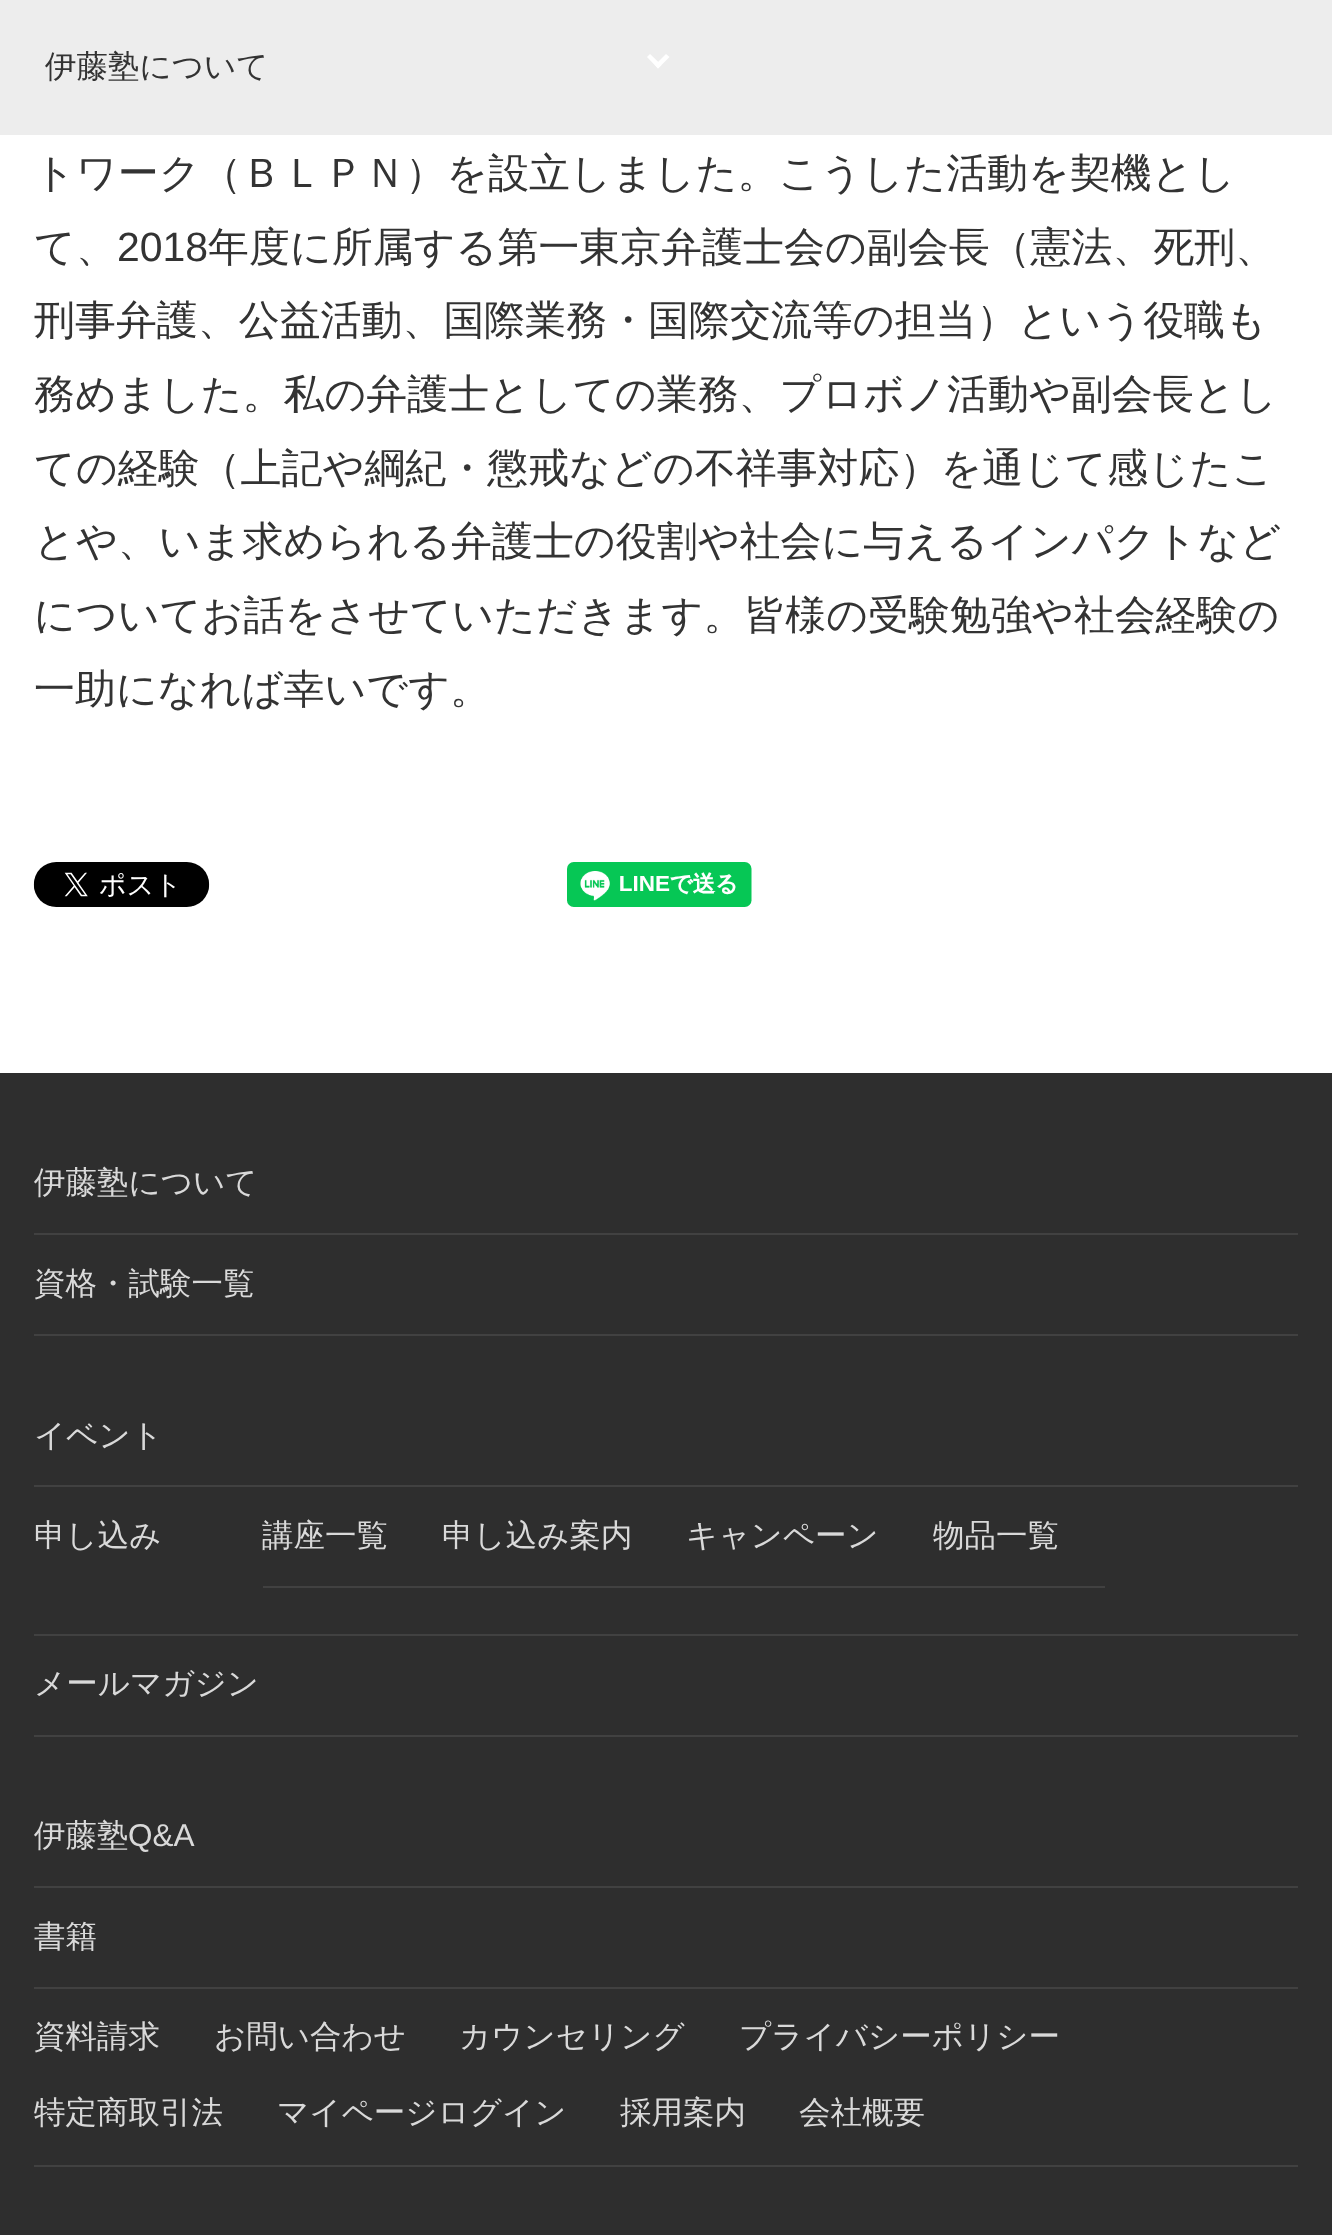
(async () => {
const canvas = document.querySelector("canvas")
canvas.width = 1332
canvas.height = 2235
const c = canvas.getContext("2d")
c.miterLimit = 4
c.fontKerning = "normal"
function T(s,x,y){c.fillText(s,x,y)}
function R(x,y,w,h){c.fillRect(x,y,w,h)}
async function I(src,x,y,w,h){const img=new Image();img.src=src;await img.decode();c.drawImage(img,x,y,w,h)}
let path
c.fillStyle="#fff"
R(0,0,1332,2235)
c.fillStyle="#ededed"
R(0,0,1332,135)
c.font="500 31.5px WenQuanYi Zen Hei"
c.fillStyle="#333"
T("伊藤塾について",45,77)
c.fillStyle="#fff"
path = new Path2D("M669.5 57l-11.5 11.5l-3-3.5l11-11z")
c.fill(path)
path = new Path2D("M661.5 65l-3.5 3.5l-11-11.5l3-3z")
c.fill(path)
c.font="500 40.95px WenQuanYi Zen Hei"
c.fillStyle="#333"
T("トワーク（ＢＬＰＮ）を設立しました。こうした活動を契機とし",34,187)
T("て、",34,261)
c.font="40.95px Liberation Sans"
T("2018",117,261)
c.font="500 40.95px WenQuanYi Zen Hei"
T("年度に所属する第一東京弁護士会の副会長（憲法、死刑、",208,261)
T("刑事弁護、公益活動、国際業務・国際交流等の担当）という役職も",34,334)
T("務めました。私の弁護士としての業務、プロボノ活動や副会長とし",34,408)
T("ての経験（上記や綱紀・懲戒などの不祥事対応）を通じて感じたこ",34,482)
T("とや、いま求められる弁護士の役割や社会に与えるインパクトなど",34,555)
T("についてお話をさせていただきます。皆様の受験勉強や社会経験の",34,629)
T("一助になれば幸いです。",34,703)
await I("1.png",33,862,177,45)
await I("2.png",567,862,185,45)
c.fillStyle="#2e2e2e"
R(0,1073,1332,1162)
c.fillStyle="#414141"
R(34,1233,1264,2)
c.font="500 31.5px WenQuanYi Zen Hei"
c.fillStyle="#d9d9d9"
T("伊藤塾について",34,1193)
c.fillStyle="#414141"
R(34,1334,1264,2)
c.fillStyle="#d9d9d9"
T("資格・試験一覧",34,1294)
c.fillStyle="#414141"
R(34,1485,1264,2)
c.fillStyle="#d9d9d9"
T("イベント",34,1446)
c.fillStyle="#414141"
R(34,1634,1264,2)
c.fillStyle="#d9d9d9"
T("申し込み",34,1546)
c.fillStyle="#414141"
R(263,1586,842,2)
c.fillStyle="#d9d9d9"
T("講座一覧",262,1546)
T("申し込み案内",442,1546)
T("キャンペーン",686,1546)
T("物品一覧",933,1546)
c.fillStyle="#414141"
R(34,1735,1264,2)
c.fillStyle="#d9d9d9"
T("メールマガジン",34,1694)
c.fillStyle="#414141"
R(34,1886,1264,2)
c.fillStyle="#d9d9d9"
T("伊藤塾",34,1846)
c.font="31.5px Liberation Sans"
T("Q&A",128,1846)
c.fillStyle="#414141"
R(34,1987,1264,2)
c.font="500 31.5px WenQuanYi Zen Hei"
c.fillStyle="#d9d9d9"
T("書籍",34,1947)
c.fillStyle="#414141"
R(34,2165,1264,2)
c.fillStyle="#d9d9d9"
T("資料請求",34,2047)
T("お問い合わせ",214,2047)
T("カウンセリング",459,2047)
T("プライバシーポリシー",739,2047)
T("特定商取引法",34,2123)
T("マイページログイン",277,2123)
T("採用案内",620,2123)
T("会社概要",799,2123)
})()
